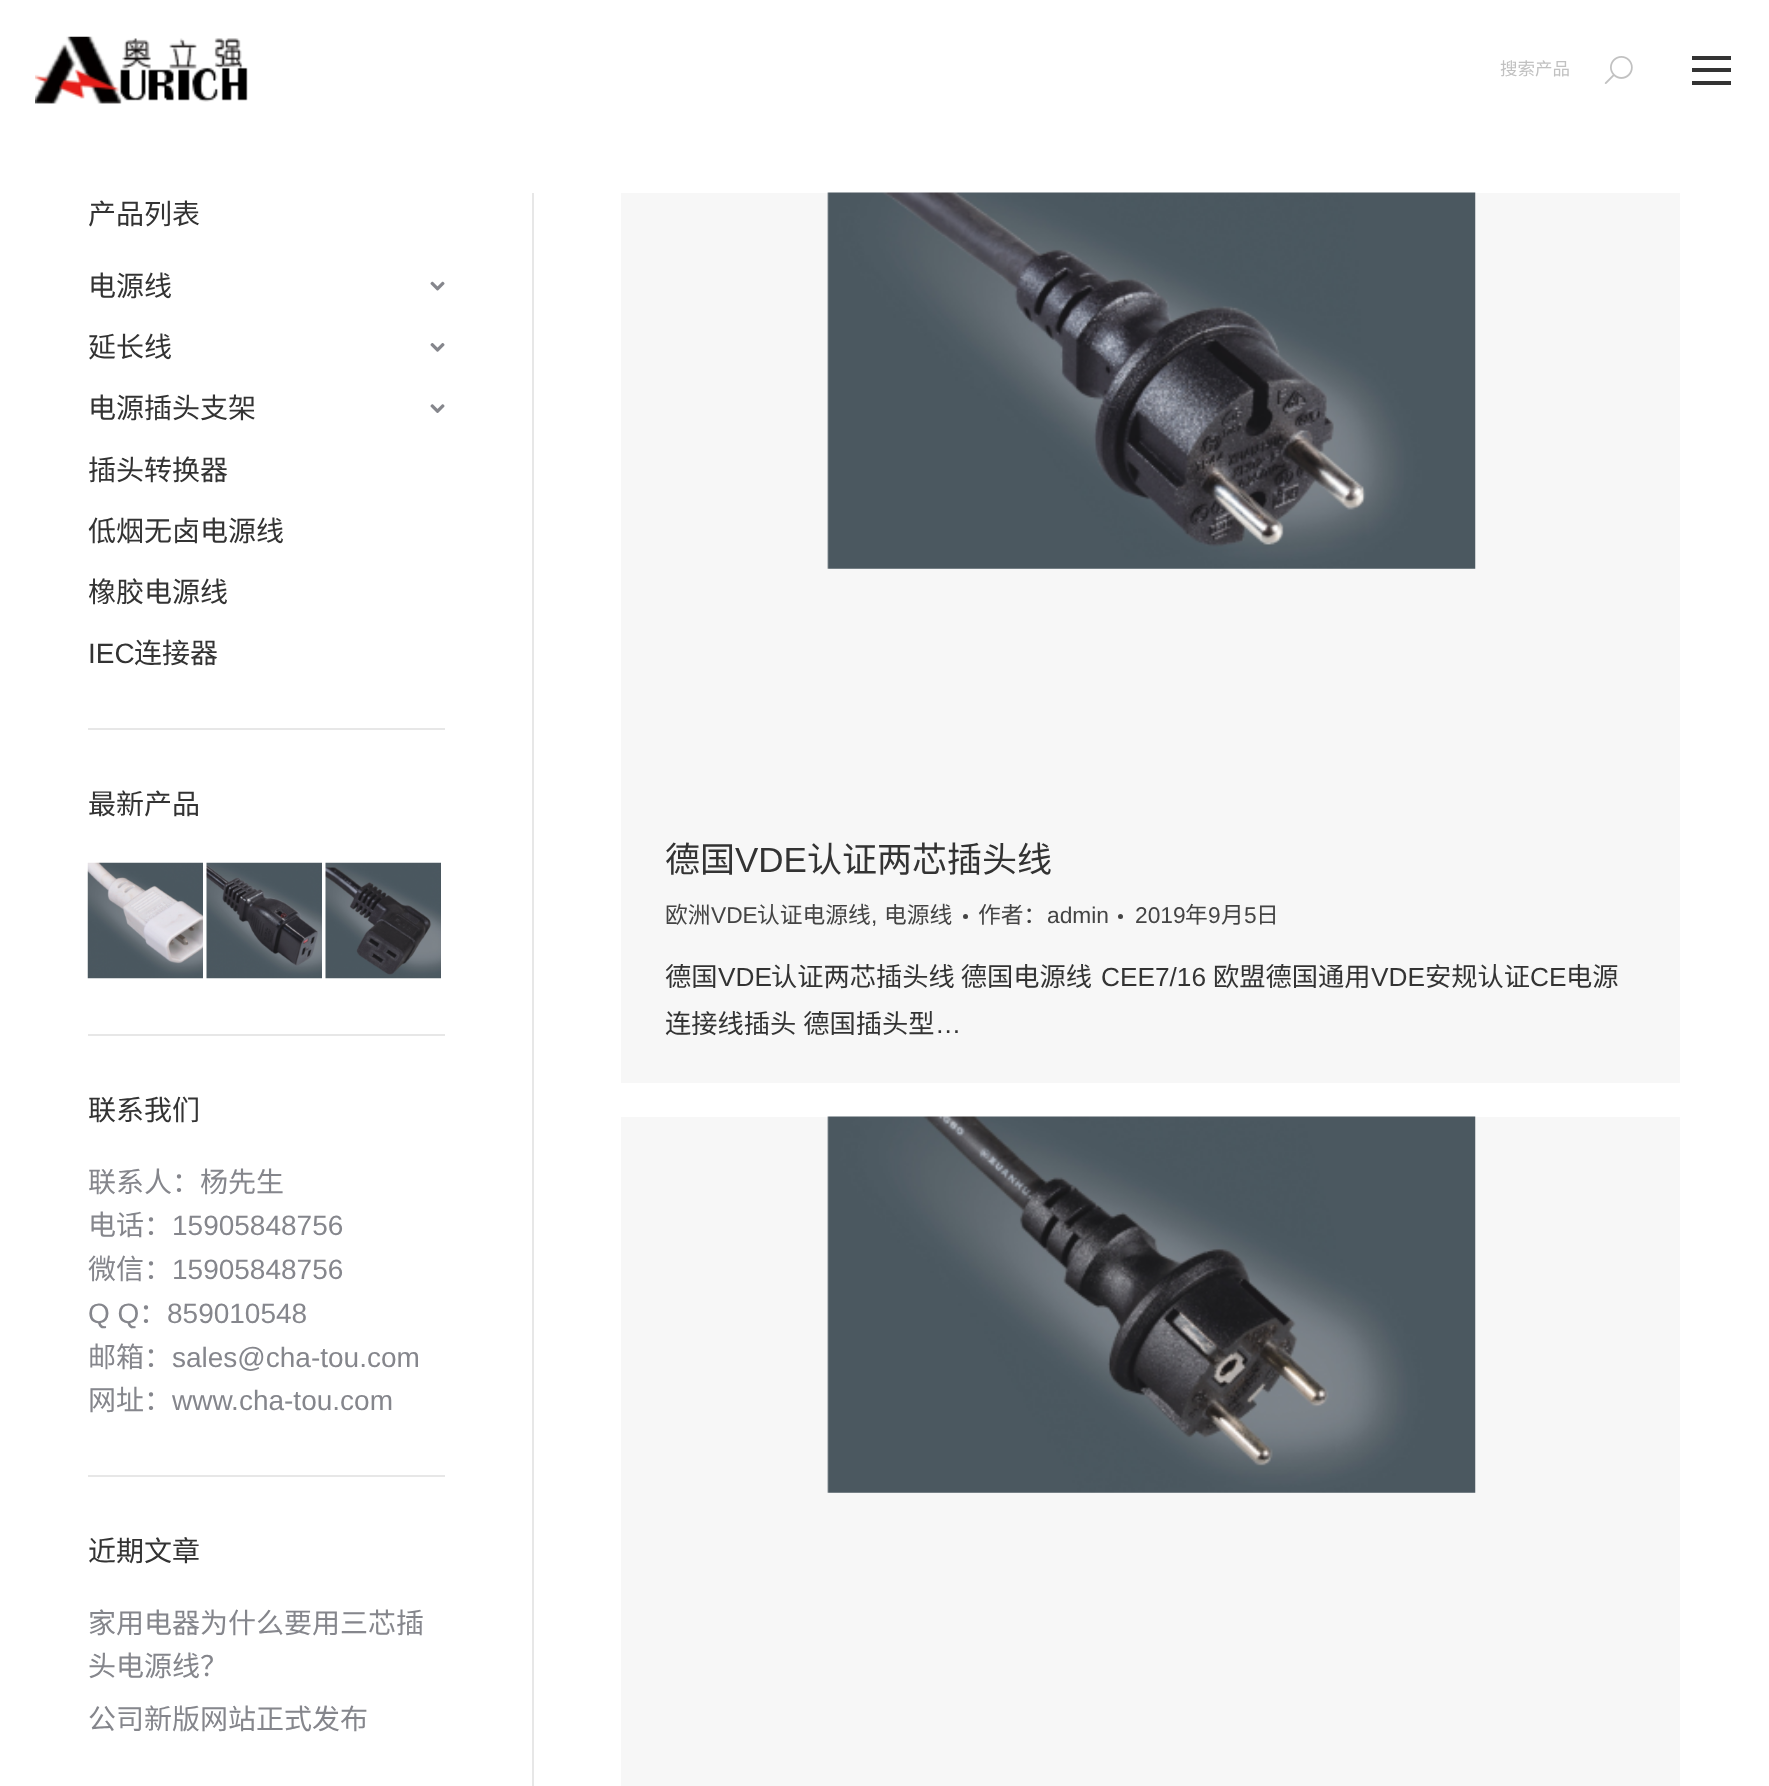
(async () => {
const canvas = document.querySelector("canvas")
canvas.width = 1769
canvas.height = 1786
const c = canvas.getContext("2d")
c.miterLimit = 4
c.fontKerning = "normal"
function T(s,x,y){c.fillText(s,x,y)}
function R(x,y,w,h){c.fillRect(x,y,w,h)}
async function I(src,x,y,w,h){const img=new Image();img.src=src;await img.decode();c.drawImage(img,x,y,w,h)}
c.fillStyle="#fff"
R(0,0,1769,1786)
await I("1.png",35,36,213,68)
c.font="17.5px Noto Sans CJK SC"
c.fillStyle="#c1c1c1"
T("搜索产品",1500,75)
await I("2.png",1604,56,29,28)
c.fillStyle="#333"
R(1692,56,39,4)
R(1692,68,39,4)
R(1692,81,39,4)
c.fillStyle="#e7e7e7"
R(532,193,2,1593)
c.font="28px Noto Sans CJK SC"
c.fillStyle="#333"
T("产品列表",88,224)
T("电源线",88,296)
await I("3.png",430,281,15,10)
T("延长线",88,357)
await I("4.png",430,343,15,9)
T("电源插头支架",88,418)
await I("5.png",430,404,15,9)
T("插头转换器",88,480)
T("低烟无卤电源线",88,541)
T("橡胶电源线",88,602)
c.font="28px Liberation Sans"
T("IEC",88,663)
c.font="28px Noto Sans CJK SC"
T("连接器",134,663)
c.fillStyle="#e7e7e7"
R(88,728,357,2)
c.fillStyle="#333"
T("最新产品",88,814)
await I("6.png",87,862,116,117)
await I("7.png",206,862,116,117)
await I("8.png",325,862,116,117)
c.fillStyle="#e7e7e7"
R(88,1034,357,2)
c.fillStyle="#333"
T("联系我们",88,1120)
c.fillStyle="#85868c"
T("联系人：杨先生",88,1192)
T("电话：",88,1235)
c.font="28px Liberation Sans"
T("15905848756",172,1235)
c.font="28px Noto Sans CJK SC"
T("微信：",88,1279)
c.font="28px Liberation Sans"
T("15905848756",172,1279)
T("Q Q",88,1323)
c.font="28px Noto Sans CJK SC"
T("：",139,1323)
c.font="28px Liberation Sans"
T("859010548",167,1323)
c.font="28px Noto Sans CJK SC"
T("邮箱：",88,1367)
c.font="28px Liberation Sans"
T("sales@cha-tou.com",172,1367)
c.font="28px Noto Sans CJK SC"
T("网址：",88,1410)
c.font="28px Liberation Sans"
T("www.cha-tou.com",172,1410)
c.fillStyle="#e7e7e7"
R(88,1475,357,2)
c.font="28px Noto Sans CJK SC"
c.fillStyle="#333"
T("近期文章",88,1561)
c.fillStyle="#85868c"
T("家用电器为什么要用三芯插",88,1633)
T("头电源线？",88,1676)
T("公司新版网站正式发布",88,1729)
c.fillStyle="#f7f7f7"
R(621,193,1059,890)
await I("9.png",827,192,649,377)
c.font="35px Noto Sans CJK SC"
c.fillStyle="#333"
T("德国",665,872)
c.font="35px Liberation Sans"
T("VDE",735,872)
c.font="35px Noto Sans CJK SC"
T("认证两芯插头线",807,872)
c.font="22.75px Noto Sans CJK SC"
c.fillStyle="#444"
T("欧洲",665,923)
c.font="22.75px Liberation Sans"
T("VDE",711,923)
c.font="22.75px Noto Sans CJK SC"
T("认证电源线",757,923)
T("电源线",884,923)
c.beginPath()
c.arc(965.5,916.5,2.5,0,7)
c.fill()
c.font="22.75px Liberation Sans"
T(",",871,923)
c.font="22.75px Noto Sans CJK SC"
T("作者：",978,923)
c.font="22.75px Liberation Sans"
T("admin",1047,923)
c.beginPath()
c.arc(1120.5,916.5,2.5,0,7)
c.fill()
T("2019",1135,923)
c.font="22.75px Noto Sans CJK SC"
T("年",1185,923)
c.font="22.75px Liberation Sans"
T("9",1208,923)
c.font="22.75px Noto Sans CJK SC"
T("月",1221,923)
c.font="22.75px Liberation Sans"
T("5",1244,923)
c.font="22.75px Noto Sans CJK SC"
T("日",1256,923)
c.font="26.25px Noto Sans CJK SC"
c.fillStyle="#333"
T("德国",665,986)
c.font="26.25px Liberation Sans"
T("VDE",718,986)
c.font="26.25px Noto Sans CJK SC"
T("认证两芯插头线 德国电源线",771,986)
c.font="26.25px Liberation Sans"
T("CEE7/16",1101,986)
c.font="26.25px Noto Sans CJK SC"
T("欧盟德国通用",1213,986)
c.font="26.25px Liberation Sans"
T("VDE",1371,986)
c.font="26.25px Noto Sans CJK SC"
T("安规认证",1425,986)
c.font="26.25px Liberation Sans"
T("CE",1530,986)
c.font="26.25px Noto Sans CJK SC"
T("电源",1566,986)
c.wordSpacing="1px"
T("连接线插头 德国插头型",665,1033)
c.wordSpacing="0px"
c.font="26.25px Liberation Sans"
T("…",935,1033)
c.fillStyle="#f7f7f7"
R(621,1117,1059,669)
await I("10.png",827,1116,649,377)
})()
